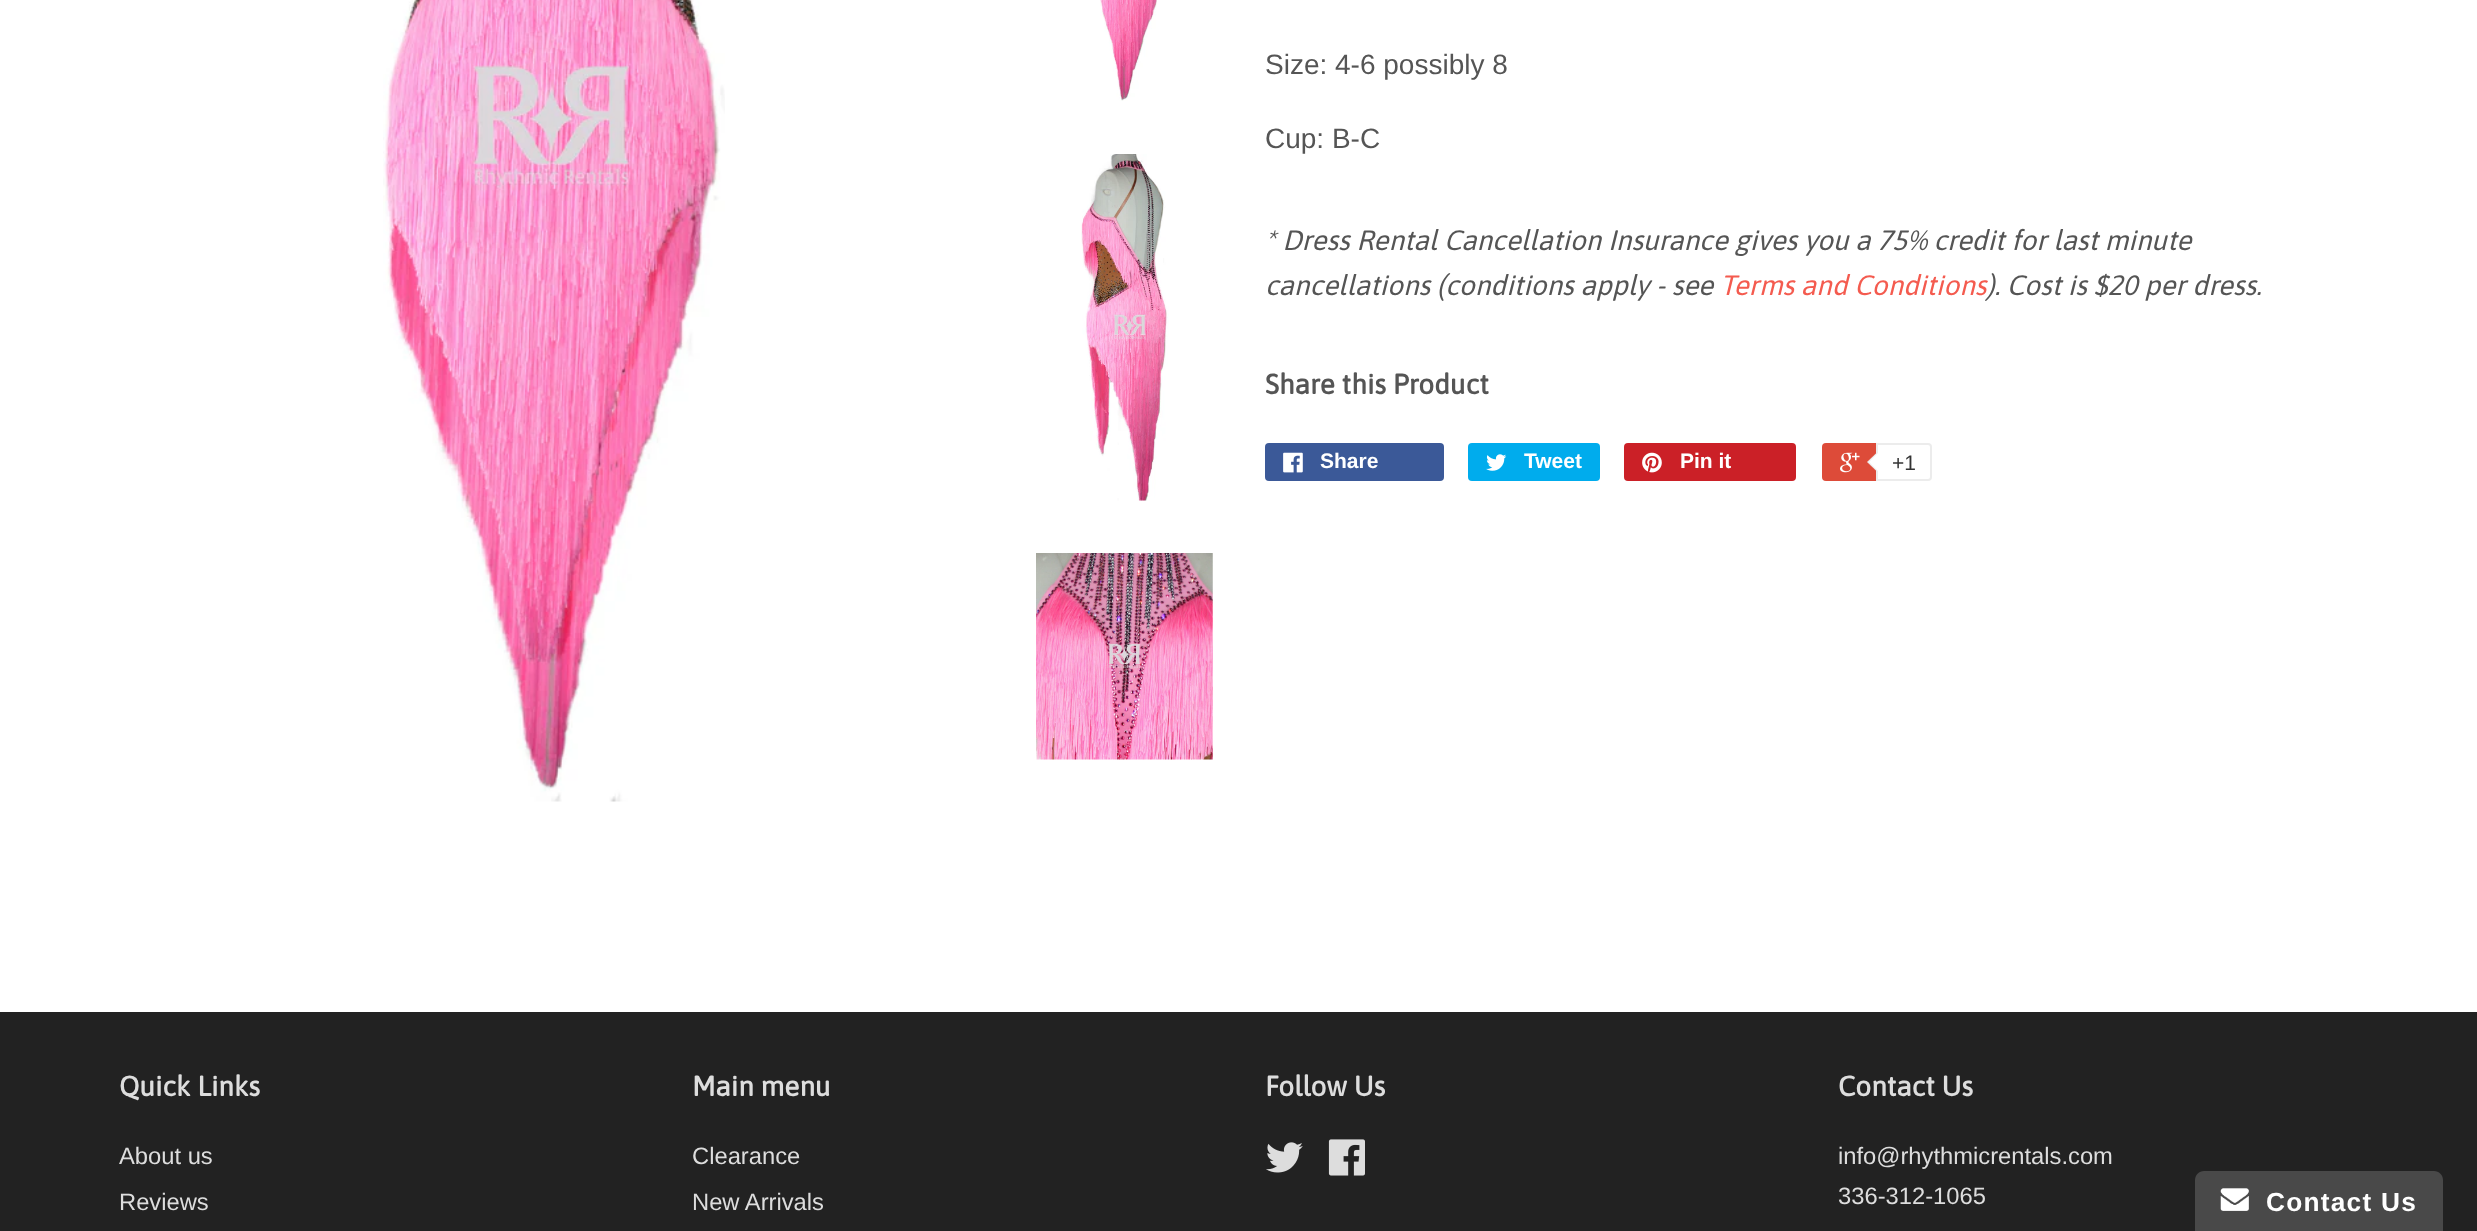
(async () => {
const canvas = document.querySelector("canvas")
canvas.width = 2477
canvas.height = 1231
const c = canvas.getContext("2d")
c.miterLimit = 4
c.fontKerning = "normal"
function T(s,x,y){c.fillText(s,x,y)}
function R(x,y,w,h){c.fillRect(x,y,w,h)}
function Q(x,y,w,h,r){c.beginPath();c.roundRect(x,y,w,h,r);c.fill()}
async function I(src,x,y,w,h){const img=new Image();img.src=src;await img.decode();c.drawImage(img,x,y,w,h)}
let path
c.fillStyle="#fff"
R(0,0,2477,1231)
await I("1.png",383,0,342,802)
await I("2.png",1100,0,57,101)
await I("3.png",1081,154,88,347)
await I("4.png",1036,553,177,207)
c.font="28px Liberation Sans"
c.fillStyle="#555"
T("Size: 4-6 possibly 8",1265,74)
T("Cup: B-C",1265,148)
c.font="italic 28px Asap"
T("* Dress Rental Cancellation Insurance gives you a 75% credit for last minute",1265,250)
T("cancellations (conditions apply - see",1265,295)
c.fillStyle="#f45b4f"
T("Terms and Conditions",1720,295)
c.fillStyle="#555"
T("). Cost is $20 per dress.",1986,295)
c.font="bold 28px Asap"
T("Share this Product",1265,394)
c.fillStyle="#3b5998"
Q(1265,443,179,38,4)
await I("5.png",1283,452,20,21)
c.font="bold 21px Liberation Sans"
c.fillStyle="#fff"
T("Share",1320,468)
c.fillStyle="#00aced"
Q(1468,443,132,38,4)
await I("6.png",1486,454,21,17)
c.fillStyle="#fff"
T("Tweet",1524,468)
c.fillStyle="#cb2027"
Q(1624,443,172,38,4)
await I("7.png",1642,452,20,21)
c.fillStyle="#fff"
T("Pin it",1680,468)
c.fillStyle="#dd4b39"
Q(1822,443,107,38,4)
await I("8.png",1840,452,20,21)
c.fillStyle="#fff"
c.beginPath()
c.roundRect(1877,444,54,36,[0,3,3,0])
c.fill()
c.strokeStyle="#ececec"
c.lineWidth=2
c.stroke()
c.fillStyle="#ececec"
path = new Path2D("M1878 451.5v21l-11-10.5z")
c.fill(path)
c.fillStyle="#fff"
path = new Path2D("M1879.5 451.5v21l-10.5-10.5z")
c.fill(path)
c.font="21px Liberation Sans"
c.fillStyle="#333"
T("+1",1892,470)
c.fillStyle="#222"
R(0,1012,2477,219)
c.font="bold 28px Asap"
c.fillStyle="#ddd"
T("Quick Links",119,1096)
c.font="23.75px Liberation Sans"
T("About us",119,1164)
T("Reviews",119,1210)
c.font="bold 28px Asap"
T("Main menu",692,1096)
c.font="23.75px Liberation Sans"
T("Clearance",692,1164)
T("New Arrivals",692,1210)
c.font="bold 28px Asap"
T("Follow Us",1265,1096)
await I("9.png",1266,1142,37,31)
await I("10.png",1328,1139,37,37)
T("Contact Us",1838,1096)
c.font="23.75px Liberation Sans"
T("info@rhythmicrentals.com",1838,1164)
T("336-312-1065",1838,1204)
c.fillStyle="#494949"
path = new Path2D("M2204 1171h230c5 0 9 4 9 9v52h-248v-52c0-5 4-9 9-9z")
c.fill(path)
await I("11.png",2220,1188,29,23)
c.letterSpacing="1.25px"
c.font="bold 26.25px Liberation Sans"
c.fillStyle="#fff"
T("Contact Us",2266,1211)
})()
